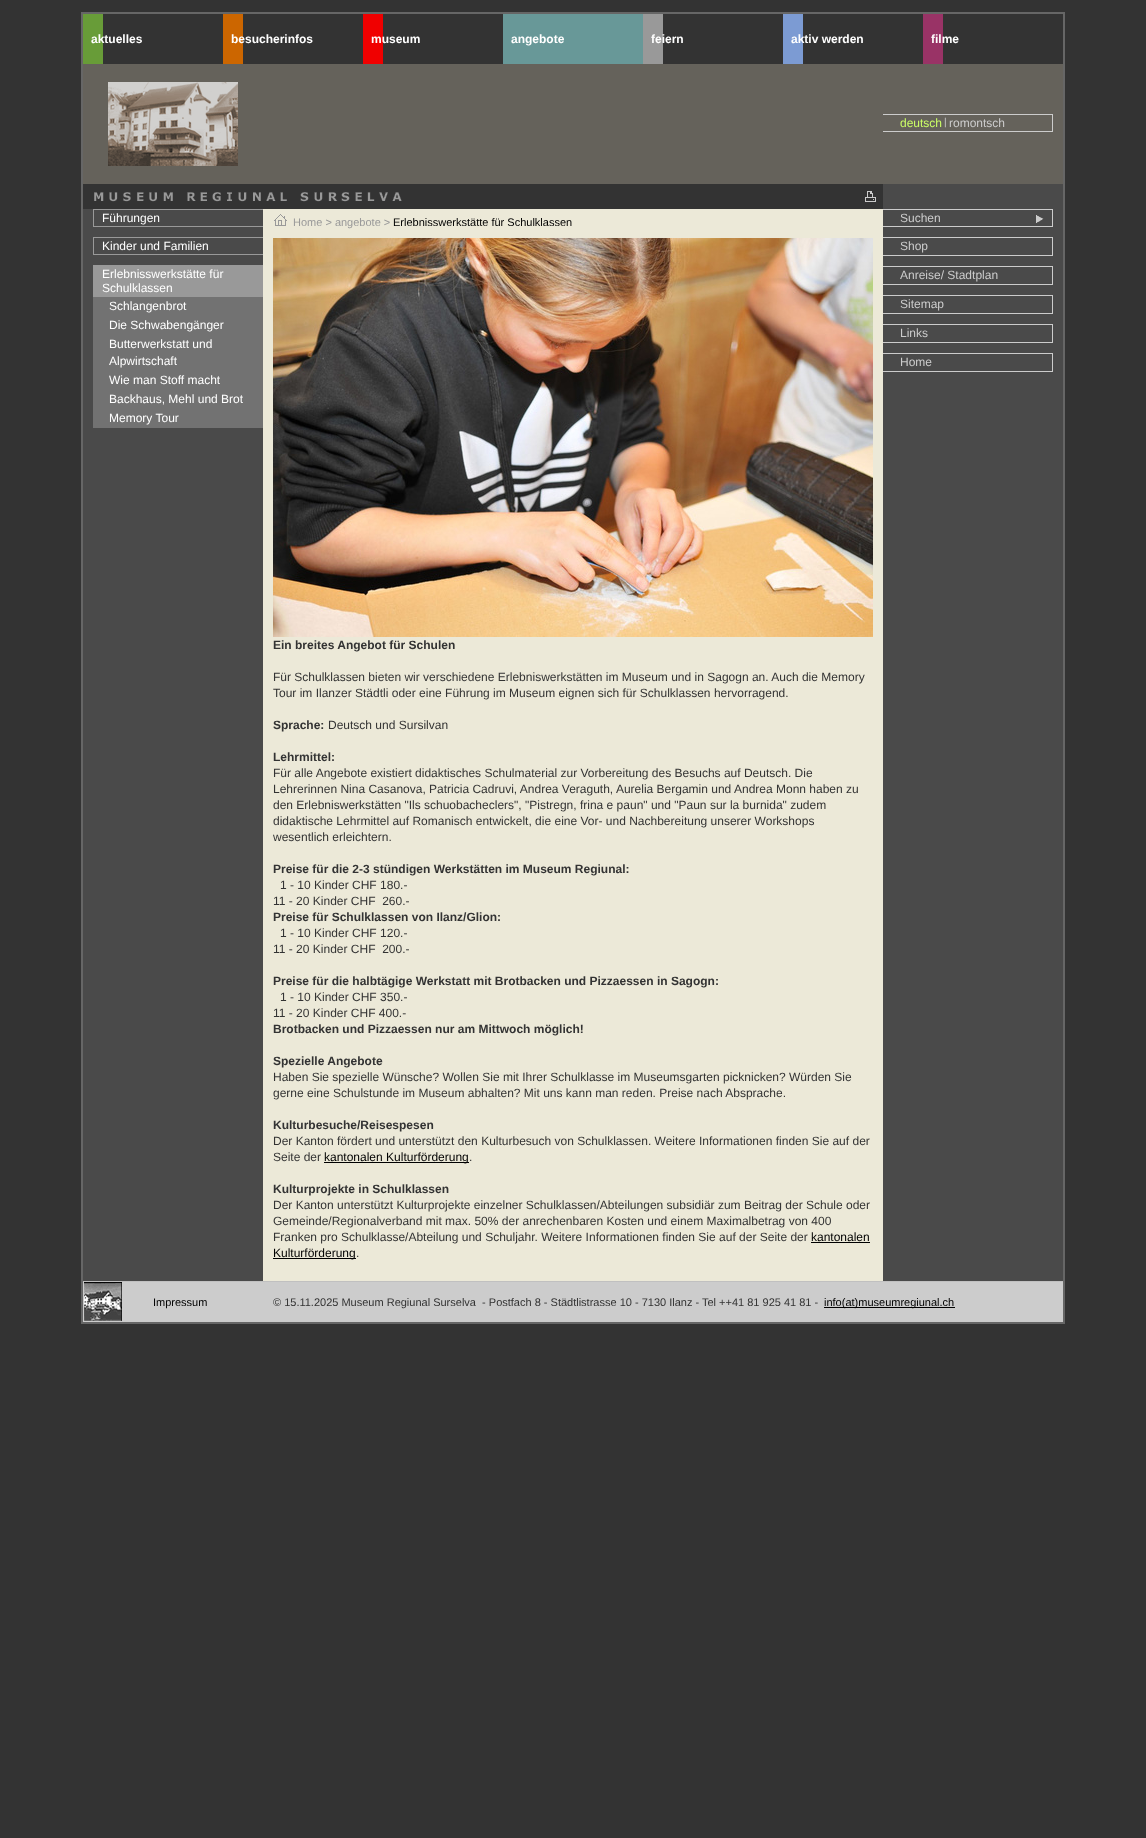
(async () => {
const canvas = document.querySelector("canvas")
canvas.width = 1146
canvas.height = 1838
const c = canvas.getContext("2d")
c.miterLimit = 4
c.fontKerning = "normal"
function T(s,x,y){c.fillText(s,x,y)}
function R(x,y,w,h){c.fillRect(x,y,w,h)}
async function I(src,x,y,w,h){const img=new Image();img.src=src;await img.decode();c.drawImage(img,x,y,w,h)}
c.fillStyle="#333"
R(0,0,1146,1838)
c.strokeStyle="#666"
c.lineWidth=2
c.strokeRect(82,13,982,1310)
c.fillStyle="#689c38"
R(83,14,20,50)
c.font="bold 12px Liberation Sans"
c.fillStyle="#fff"
T("aktuelles",91,43)
c.fillStyle="#c60"
R(223,14,20,50)
c.fillStyle="#fff"
T("besucherinfos",231,43)
c.fillStyle="#f00000"
R(363,14,20,50)
c.fillStyle="#fff"
T("museum",371,43)
c.fillStyle="#689898"
R(503,14,140,50)
c.fillStyle="#fff"
T("angebote",511,43)
c.fillStyle="#999"
R(643,14,20,50)
c.fillStyle="#fff"
T("feiern",651,43)
c.fillStyle="#7c9bd3"
R(783,14,20,50)
c.fillStyle="#fff"
T("aktiv werden",791,43)
c.fillStyle="#936"
R(923,14,20,50)
c.fillStyle="#fff"
T("filme",931,43)
c.fillStyle="#65625b"
R(83,64,980,120)
await I("1.png",108,82,130,84)
c.fillStyle="#ccc"
R(883,114,170,1)
R(1052,114,1,18)
R(883,131,170,1)
c.font="12px Liberation Sans"
c.fillStyle="#cbfe66"
T("deutsch",900,127)
c.font="10px Liberation Sans"
c.fillStyle="#ccc"
T("|",944,125)
c.font="12px Liberation Sans"
T("romontsch",949,127)
c.fillStyle="#4a4a4a"
R(883,184,180,25)
await I("2.png",83,184,800,25)
await I("3.png",865,191,11,11)
R(83,209,980,1072)
c.fillStyle="#999"
R(93,209,170,1)
R(93,226,170,1)
R(93,209,1,18)
c.fillStyle="#fff"
T("Führungen",102,222)
c.fillStyle="#999"
R(93,237,170,1)
R(93,254,170,1)
R(93,237,1,18)
c.fillStyle="#fff"
T("Kinder und Familien",102,250)
c.fillStyle="#999"
R(93,265,170,32)
c.fillStyle="#fff"
T("Erlebnisswerkstätte für",102,278)
T("Schulklassen",102,292)
c.fillStyle="#727272"
R(93,297,170,131)
c.fillStyle="#fff"
T("Schlangenbrot",109,310)
T("Die Schwabengänger",109,329)
T("Butterwerkstatt und",109,348)
T("Alpwirtschaft",109,365)
T("Wie man Stoff macht",109,384)
T("Backhaus, Mehl und Brot",109,403)
T("Memory Tour",109,422)
c.fillStyle="#ece9d8"
R(263,209,620,1072)
await I("4.png",274,214,13,12)
c.font="11px Liberation Sans"
c.fillStyle="#999"
T("Home > angebote >",293,226)
c.fillStyle="#000"
T("Erlebnisswerkstätte für Schulklassen",393,226)
await I("5.png",273,238,600,399)
c.font="bold 12px Liberation Sans"
c.fillStyle="#333"
T("Ein breites Angebot für Schulen",273,649)
c.font="12px Liberation Sans"
T("Für Schulklassen bieten wir verschiedene Erlebniswerkstätten im Museum und in Sagogn an. Auch die Memory",273,681)
T("Tour im Ilanzer Städtli oder eine Führung im Museum eignen sich für Schulklassen hervorragend.",273,697)
c.font="bold 12px Liberation Sans"
T("Sprache:",273,729)
c.font="12px Liberation Sans"
T("Deutsch und Sursilvan",328,729)
c.font="bold 12px Liberation Sans"
T("Lehrmittel:",273,761)
c.font="12px Liberation Sans"
T("Für alle Angebote existiert didaktisches Schulmaterial zur Vorbereitung des Besuchs auf Deutsch. Die",273,777)
T("Lehrerinnen Nina Casanova, Patricia Cadruvi, Andrea Veraguth, Aurelia Bergamin und Andrea Monn haben zu",273,793)
T("den Erlebniswerkstätten \"Ils schuobacheclers\", \"Pistregn, frina e paun\" und \"Paun sur la burnida\" zudem",273,809)
T("didaktische Lehrmittel auf Romanisch entwickelt, die eine Vor- und Nachbereitung unserer Workshops",273,825)
T("wesentlich erleichtern.",273,841)
c.font="bold 12px Liberation Sans"
T("Preise für die 2-3 stündigen Werkstätten im Museum Regiunal:",273,873)
c.font="12px Liberation Sans"
T("1 - 10 Kinder CHF 180.-",280,889)
T("11 - 20 Kinder CHF  260.-",273,905)
c.font="bold 12px Liberation Sans"
T("Preise für Schulklassen von Ilanz/Glion:",273,921)
c.font="12px Liberation Sans"
T("1 - 10 Kinder CHF 120.-",280,937)
T("11 - 20 Kinder CHF  200.-",273,953)
c.font="bold 12px Liberation Sans"
T("Preise für die halbtägige Werkstatt mit Brotbacken und Pizzaessen in Sagogn:",273,985)
c.font="12px Liberation Sans"
T("1 - 10 Kinder CHF 350.-",280,1001)
T("11 - 20 Kinder CHF 400.-",273,1017)
c.font="bold 12px Liberation Sans"
T("Brotbacken und Pizzaessen nur am Mittwoch möglich!",273,1033)
T("Spezielle Angebote",273,1065)
c.font="12px Liberation Sans"
T("Haben Sie spezielle Wünsche? Wollen Sie mit Ihrer Schulklasse im Museumsgarten picknicken? Würden Sie",273,1081)
T("gerne eine Schulstunde im Museum abhalten? Mit uns kann man reden. Preise nach Absprache.",273,1097)
c.font="bold 12px Liberation Sans"
T("Kulturbesuche/Reisespesen",273,1129)
c.font="12px Liberation Sans"
T("Der Kanton fördert und unterstützt den Kulturbesuch von Schulklassen. Weitere Informationen finden Sie auf der",273,1145)
T("Seite der",273,1161)
c.fillStyle="#000"
R(324,1162,145,1)
T("kantonalen Kulturförderung",324,1161)
c.fillStyle="#333"
T(".",469,1161)
c.font="bold 12px Liberation Sans"
T("Kulturprojekte in Schulklassen",273,1193)
c.font="12px Liberation Sans"
T("Der Kanton unterstützt Kulturprojekte einzelner Schulklassen/Abteilungen subsidiär zum Beitrag der Schule oder",273,1209)
T("Gemeinde/Regionalverband mit max. 50% der anrechenbaren Kosten und einem Maximalbetrag von 400",273,1225)
T("Franken pro Schulklasse/Abteilung und Schuljahr. Weitere Informationen finden Sie auf der Seite der",273,1241)
c.fillStyle="#000"
T("kantonalen",811,1241)
R(811,1242,59,1)
R(273,1258,83,1)
T("Kulturförderung",273,1257)
c.fillStyle="#333"
T(".",356,1257)
c.fillStyle="#ccc"
R(883,209,170,1)
R(1052,209,1,18)
R(883,226,170,1)
T("Suchen",900,222)
await I("6.png",1036,215,8,8)
R(883,237,170,1)
R(1052,237,1,19)
R(883,255,170,1)
T("Shop",900,250)
R(883,266,170,1)
R(1052,266,1,19)
R(883,284,170,1)
T("Anreise/ Stadtplan",900,279)
R(883,295,170,1)
R(1052,295,1,19)
R(883,313,170,1)
T("Sitemap",900,308)
R(883,324,170,1)
R(1052,324,1,19)
R(883,342,170,1)
T("Links",900,337)
R(883,353,170,1)
R(1052,353,1,19)
R(883,371,170,1)
T("Home",900,366)
R(83,1282,980,40)
c.fillStyle="#c0c0c0"
R(83,1281,980,1)
await I("7.png",84,1282,38,39)
c.font="11px Liberation Sans"
c.fillStyle="#000"
T("Impressum",153,1306)
c.fillStyle="#333"
T("© 15.11.2025 Museum Regiunal Surselva  - Postfach 8 - Städtlistrasse 10 - 7130 Ilanz - Tel ++41 81 925 41 81 -",273,1306)
c.fillStyle="#000"
R(824,1307,131,1)
T("info(at)museumregiunal.ch",824,1306)
})()
